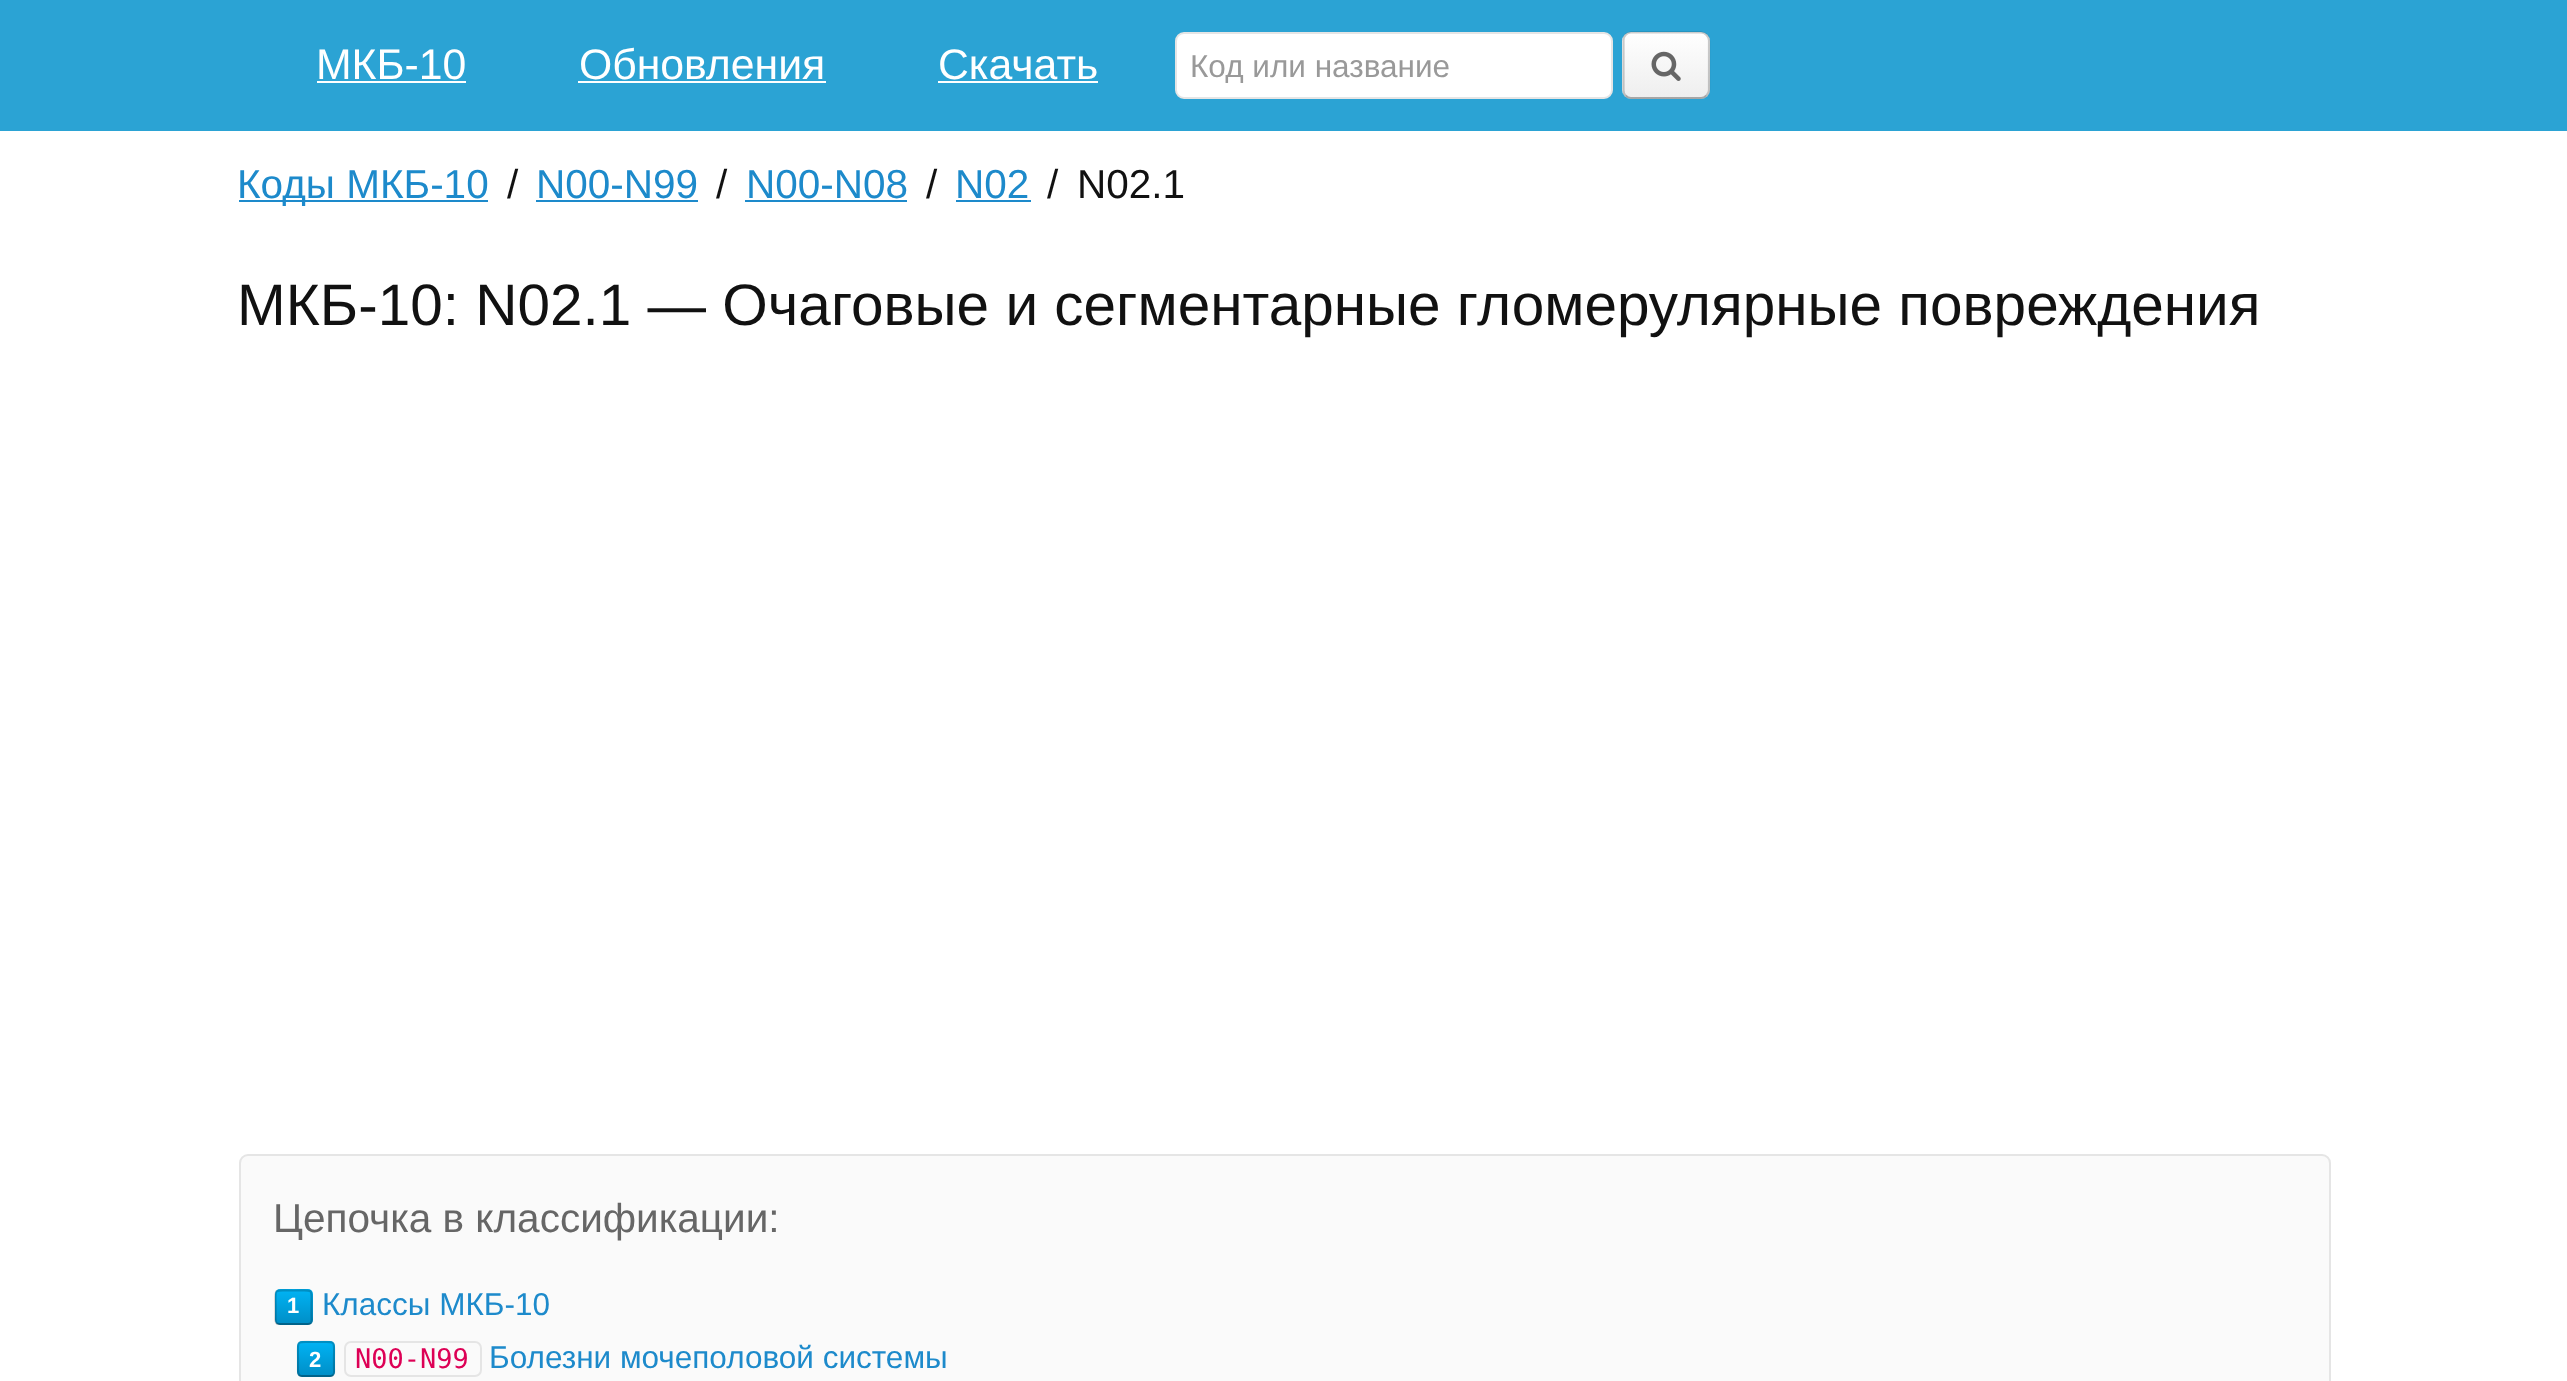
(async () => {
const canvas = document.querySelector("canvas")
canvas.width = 2567
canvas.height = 1381
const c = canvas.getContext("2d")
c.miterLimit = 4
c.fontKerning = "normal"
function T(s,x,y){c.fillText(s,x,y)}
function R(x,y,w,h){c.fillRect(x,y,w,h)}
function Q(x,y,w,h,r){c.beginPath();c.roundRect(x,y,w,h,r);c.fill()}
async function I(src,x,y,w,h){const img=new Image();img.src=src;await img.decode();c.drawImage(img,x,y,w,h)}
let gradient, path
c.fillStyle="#fff"
R(0,0,2567,1381)
c.fillStyle="#2ba3d4"
R(0,0,2567,131)
c.font="42.75px Liberation Sans"
c.fillStyle="#fff"
T("МКБ-10",316,79)
R(317,81,149,2)
T("Обновления",579,79)
R(578,81,248,2)
T("Скачать",938,79)
R(938,81,160,2)
c.beginPath()
c.roundRect(1176,33,436,65,8)
c.fill()
c.strokeStyle="#e5e5e5"
c.lineWidth=2
c.stroke()
c.save()
c.beginPath()
c.rect(1190,47,399,36)
c.clip()
c.font="31.5px Liberation Sans"
c.fillStyle="#999"
T("Код или название",1190,77)
c.restore()
gradient = c.createLinearGradient(1666,31,1666,99)
gradient.addColorStop(0,"#fff")
gradient.addColorStop(1,"#eee")
c.fillStyle = gradient
Q(1622,32,88,67,9)
path = new Path2D("M1706.5 95.5c-1.5 1.5-3.5 2.5-5.5 2.5h-70c-2 0-4-1-5.5-2.5")
c.strokeStyle="#0000004d"
c.lineWidth=2.2
c.stroke(path)
path = new Path2D("M1625.5 95.5c-1.5-1.5-2-3.5-2-5.5v-49.5c0-2 .5-4 2-5.5c1.5-1.5 3.5-2.5 5.5-2.5h70c2 0 4 1 5.5 2.5c1.5 1.5 2.5 3.5 2.5 5.5v49.5c0 2-1 4-2.5 5.5")
c.strokeStyle="#00000033"
c.stroke(path)
await I("1.png",1651,51,30,30)
c.fillStyle="#1d8acb"
R(239,200,249,2)
c.font="40.5px Liberation Sans"
T("Коды МКБ-10",237,198)
c.fillStyle="#111"
T("/",507,198)
c.fillStyle="#1d8acb"
T("N00-N99",536,198)
R(536,200,162,2)
c.fillStyle="#111"
T("/",716,198)
c.fillStyle="#1d8acb"
T("N00-N08",746,198)
R(745,200,162,2)
c.fillStyle="#111"
T("/",926,198)
c.fillStyle="#1d8acb"
T("N02",955,198)
R(956,200,75,2)
c.fillStyle="#111"
T("/",1047,198)
T("N02.1",1077,198)
c.font="58.5px Liberation Sans"
T("МКБ-10: N02.1 — Очаговые и сегментарные гломерулярные повреждения",237,325)
c.fillStyle="#fafafa"
c.beginPath()
c.roundRect(240,1155,2090,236,8)
c.fill()
c.strokeStyle="#e5e5e5"
c.lineWidth=2
c.stroke()
c.font="40.5px Liberation Sans"
c.fillStyle="#666"
T("Цепочка в классификации:",273,1232)
gradient = c.createLinearGradient(294,1289,294,1325)
gradient.addColorStop(0,"#00b4f5")
gradient.addColorStop(1,"#008dc5")
c.fillStyle = gradient
Q(275,1289,38,36,5)
path = new Path2D("M310.5 1323c-.5 1-1.5 1-2.5 1h-29c-1 0-2 0-2.5-1")
c.strokeStyle="#0000004d"
c.lineWidth=2.2
c.stroke(path)
path = new Path2D("M276.5 1323c-1.5-1.5-1-5-1-7v-9c0-20-3-16.5 18-16.5c21 0 18-3.5 18 16.5v9c0 2 1 5.5-1 7")
c.strokeStyle="#00000033"
c.stroke(path)
c.font="bold 22px Liberation Sans"
c.fillStyle="#fff"
T("1",287,1313)
c.font="31.5px Liberation Sans"
c.fillStyle="#1d8acb"
T("Классы МКБ-10",322,1315)
gradient = c.createLinearGradient(316,1341,316,1377)
gradient.addColorStop(0,"#00b4f5")
gradient.addColorStop(1,"#008dc5")
c.fillStyle = gradient
Q(297,1341,38,36,5)
path = new Path2D("M333 1375c-.5 .5-1.5 1-2 1h-29.5c-1 0-2-.5-2.5-1")
c.strokeStyle="#0000004d"
c.stroke(path)
path = new Path2D("M299 1375c-1.5-2-1-5-1-7v-9c0-20.5-3-17 18-17c21 0 18-3.5 18 17v9c0 2 1 5-1 7")
c.strokeStyle="#00000033"
c.stroke(path)
c.font="bold 22px Liberation Sans"
c.fillStyle="#fff"
T("2",309,1367)
c.beginPath()
c.roundRect(345,1342,136,34,6)
c.strokeStyle="#e5e5e5"
c.lineWidth=2
c.stroke()
c.font="27px DejaVu Sans Mono"
c.fillStyle="#d05"
T("N00-N99",355,1368)
c.font="31.5px Liberation Sans"
c.fillStyle="#1d8acb"
T("Болезни мочеполовой системы",489,1368)
})()
